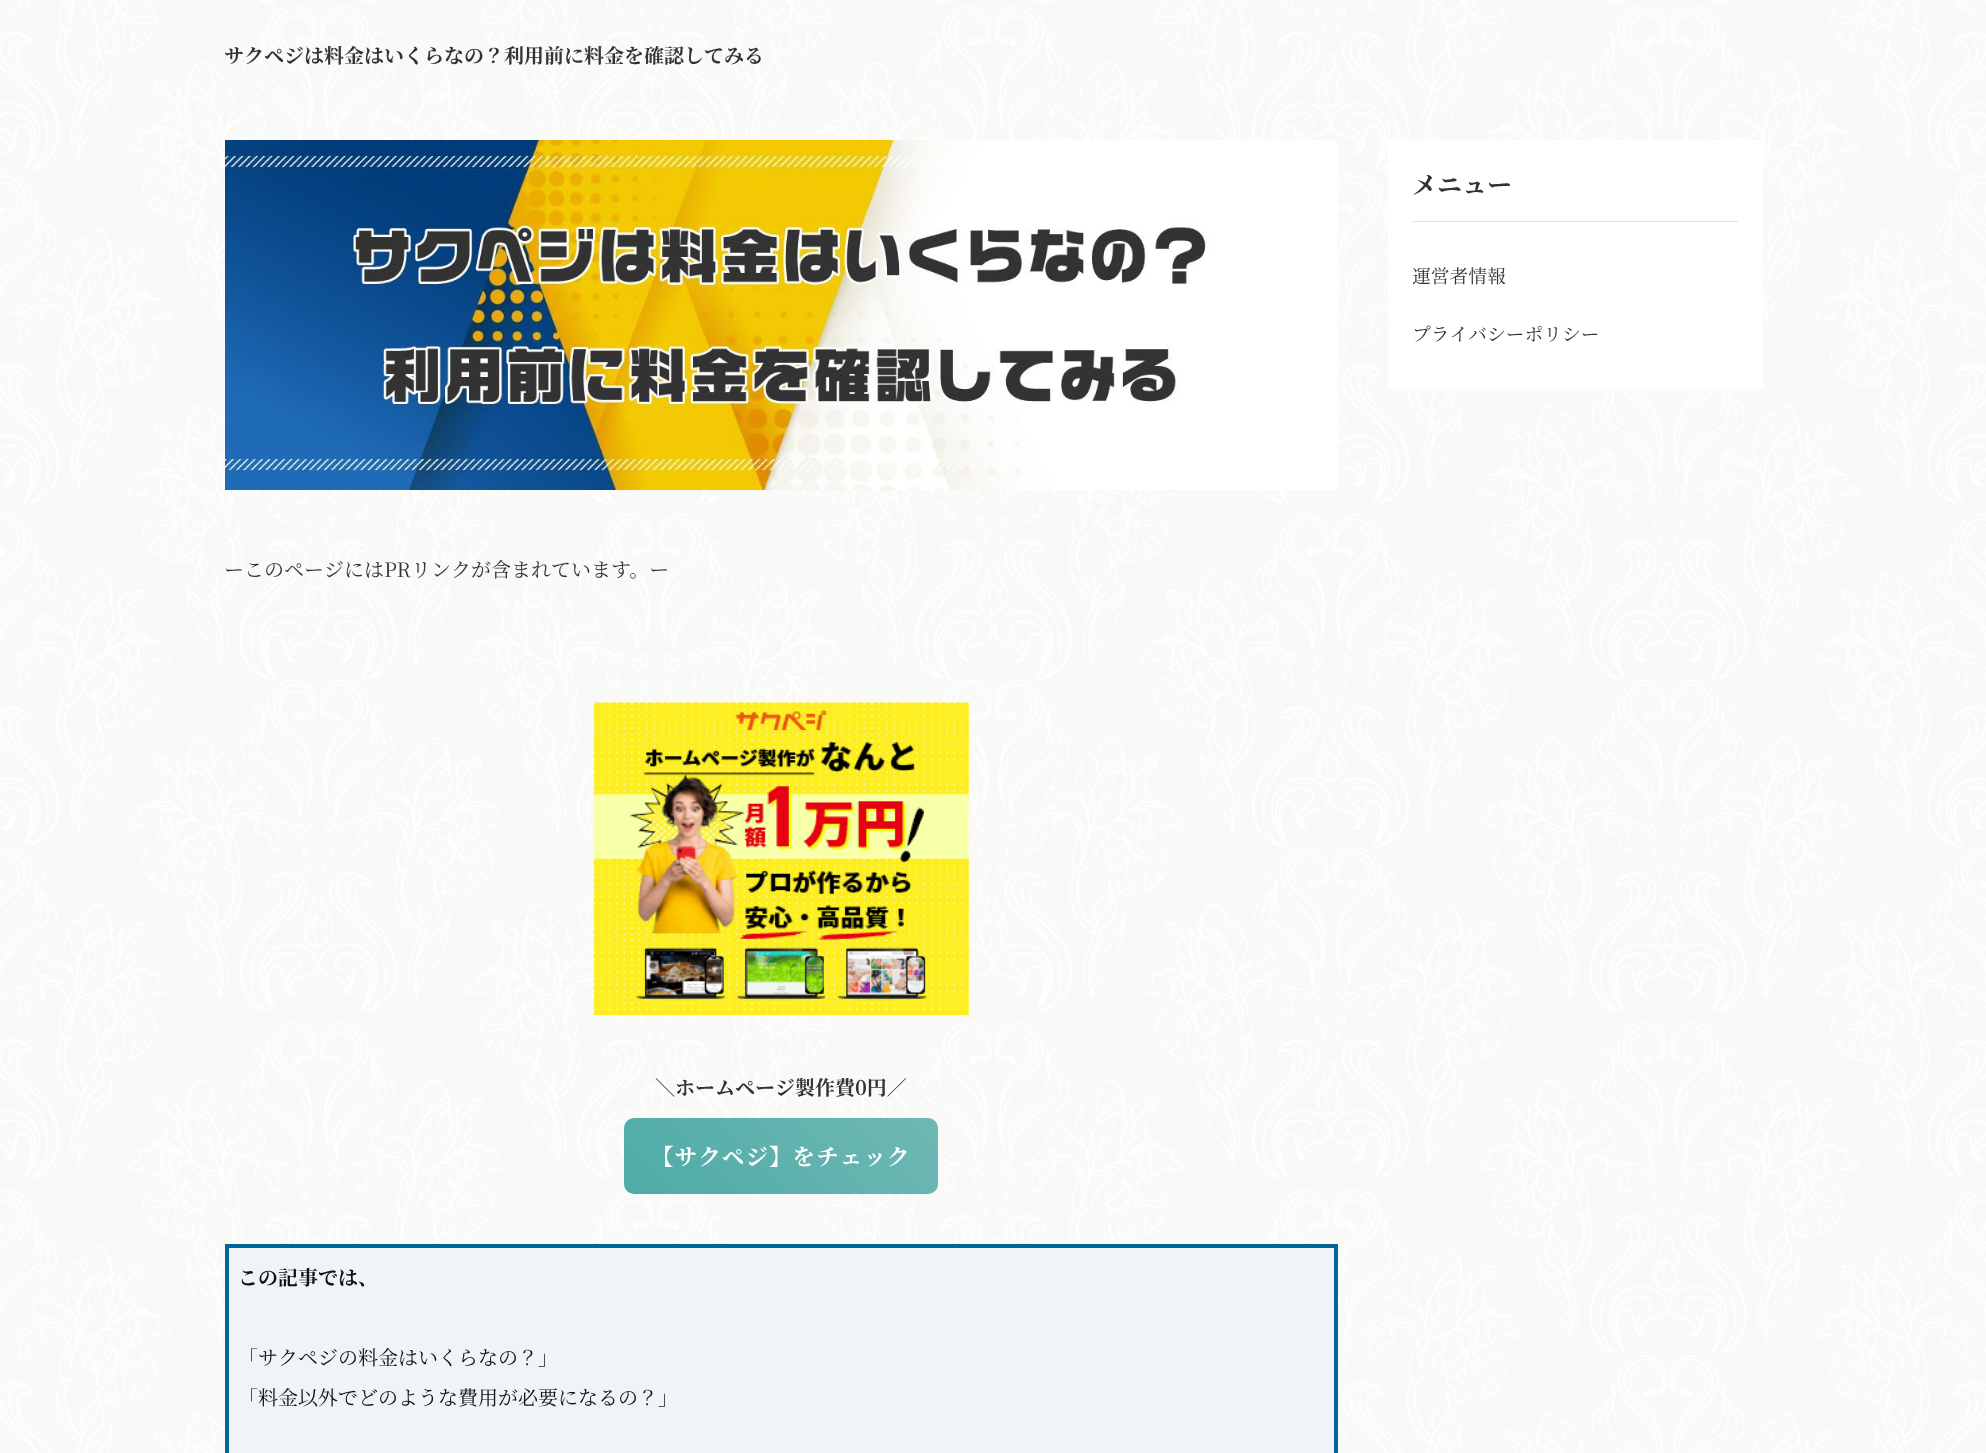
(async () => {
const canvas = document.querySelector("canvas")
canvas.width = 1986
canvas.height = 1453
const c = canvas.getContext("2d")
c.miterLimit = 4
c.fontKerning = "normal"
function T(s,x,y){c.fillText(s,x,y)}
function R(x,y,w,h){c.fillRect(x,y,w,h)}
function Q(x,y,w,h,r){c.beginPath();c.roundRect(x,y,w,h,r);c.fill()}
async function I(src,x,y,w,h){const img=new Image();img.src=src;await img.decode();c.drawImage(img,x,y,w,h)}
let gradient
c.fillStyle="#f9f9f7"
R(0,0,1986,1453)
await I("1.png",0,0,1986,1453)
c.font="bold 20px Noto Serif JP"
c.fillStyle="#333"
T("サクペジは料金はいくらなの？利用前に料金を確認してみる",224,63)
await I("2.png",225,140,1113,350)
c.fillStyle="#fff"
R(1388,140,375,249)
c.fillStyle="#e1e1e1"
R(1413,221,325,1)
c.font="bold 25px Noto Serif JP"
c.fillStyle="#333"
T("メニュー",1412,194)
c.save()
c.beginPath()
c.rect(1413,248,325,116)
c.clip()
c.font="18.75px Noto Serif JP"
T("運営者情報",1412,283)
c.restore()
c.font="18.75px Noto Serif JP"
T("プライバシーポリシー",1412,341)
c.font="20px Noto Serif JP"
T("ーこのページにはPRリンクが含まれています。ー",224,577)
await I("3.png",593,702,376,313)
c.font="bold 20px Noto Serif JP"
T("＼ホームページ製作費0円／",655,1095)
c.fillStyle="#4eaba6"
Q(624,1118,314,76,10)
gradient = c.createLinearGradient(762,1332,1114,979)
gradient.addColorStop(0,"#e6e6e600")
gradient.addColorStop(.7,"#e6e6e647")
gradient.addColorStop(.7,"#e6e6e600")
c.fillStyle = gradient
Q(624,1118,314,76,10)
c.letterSpacing="1.1px"
c.font="bold 22.5px Noto Serif JP"
c.fillStyle="#fff"
T("【サクペジ】をチェック",651,1165)
c.fillStyle="#f0f4f9"
c.beginPath()
c.rect(227,1246,1109,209)
c.fill()
c.strokeStyle="#069"
c.lineWidth=4
c.stroke()
c.letterSpacing="0px"
c.font="bold 20px Noto Serif JP"
c.fillStyle="#111"
T("この記事では、",238,1285)
c.font="20px Noto Serif JP"
T("「サクペジの料金はいくらなの？」",238,1365)
T("「料金以外でどのような費用が必要になるの？」",238,1405)
})()
